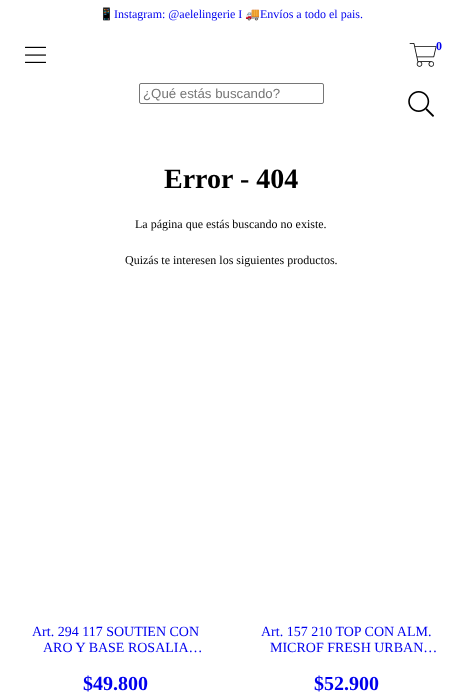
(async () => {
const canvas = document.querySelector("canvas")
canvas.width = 462
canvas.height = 698
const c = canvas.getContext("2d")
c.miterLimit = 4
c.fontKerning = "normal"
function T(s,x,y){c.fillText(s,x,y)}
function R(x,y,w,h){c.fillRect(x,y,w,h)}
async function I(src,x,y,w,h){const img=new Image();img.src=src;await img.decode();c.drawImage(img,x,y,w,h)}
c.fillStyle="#fff"
R(0,0,462,698)
c.font="12px Noto Color Emoji"
c.fillStyle="#00e"
T("📱",99,18)
c.font="12px Liberation Serif"
T("Instagram: @aelelingerie I",114,18)
c.font="12px Noto Color Emoji"
T("🚚",245,18)
c.font="12px Liberation Serif"
T("Envíos a todo el pais.",260,18)
await I("1.png",25,46,21,17)
await I("2.png",409,43,28,24)
c.font="bold 12px Liberation Serif"
T("0",436,50)
c.beginPath()
c.roundRect(139.5,83.5,184,20,1.5)
c.strokeStyle="#767676"
c.stroke()
c.font="13.25px Liberation Sans"
c.fillStyle="#757575"
T("¿Qué estás buscando?",143,98)
await I("3.png",408,91,26,26)
c.font="bold 28px Liberation Serif"
c.fillStyle="#000"
T("Error - 404",164,188)
c.font="12px Liberation Serif"
T("La página que estás buscando no existe.",135,228)
T("Quizás te interesen los siguientes productos.",125,264)
c.font="14px Liberation Serif"
c.fillStyle="#00e"
T("Art. 294 117 SOUTIEN CON",32,636)
T("ARO Y BASE ROSALIA…",43,652)
c.font="bold 20px Liberation Serif"
T("$49.800",83,690)
c.font="14px Liberation Serif"
T("Art. 157 210 TOP CON ALM.",261,636)
T("MICROF FRESH URBAN…",270,652)
c.font="bold 20px Liberation Serif"
T("$52.900",314,690)
})()
